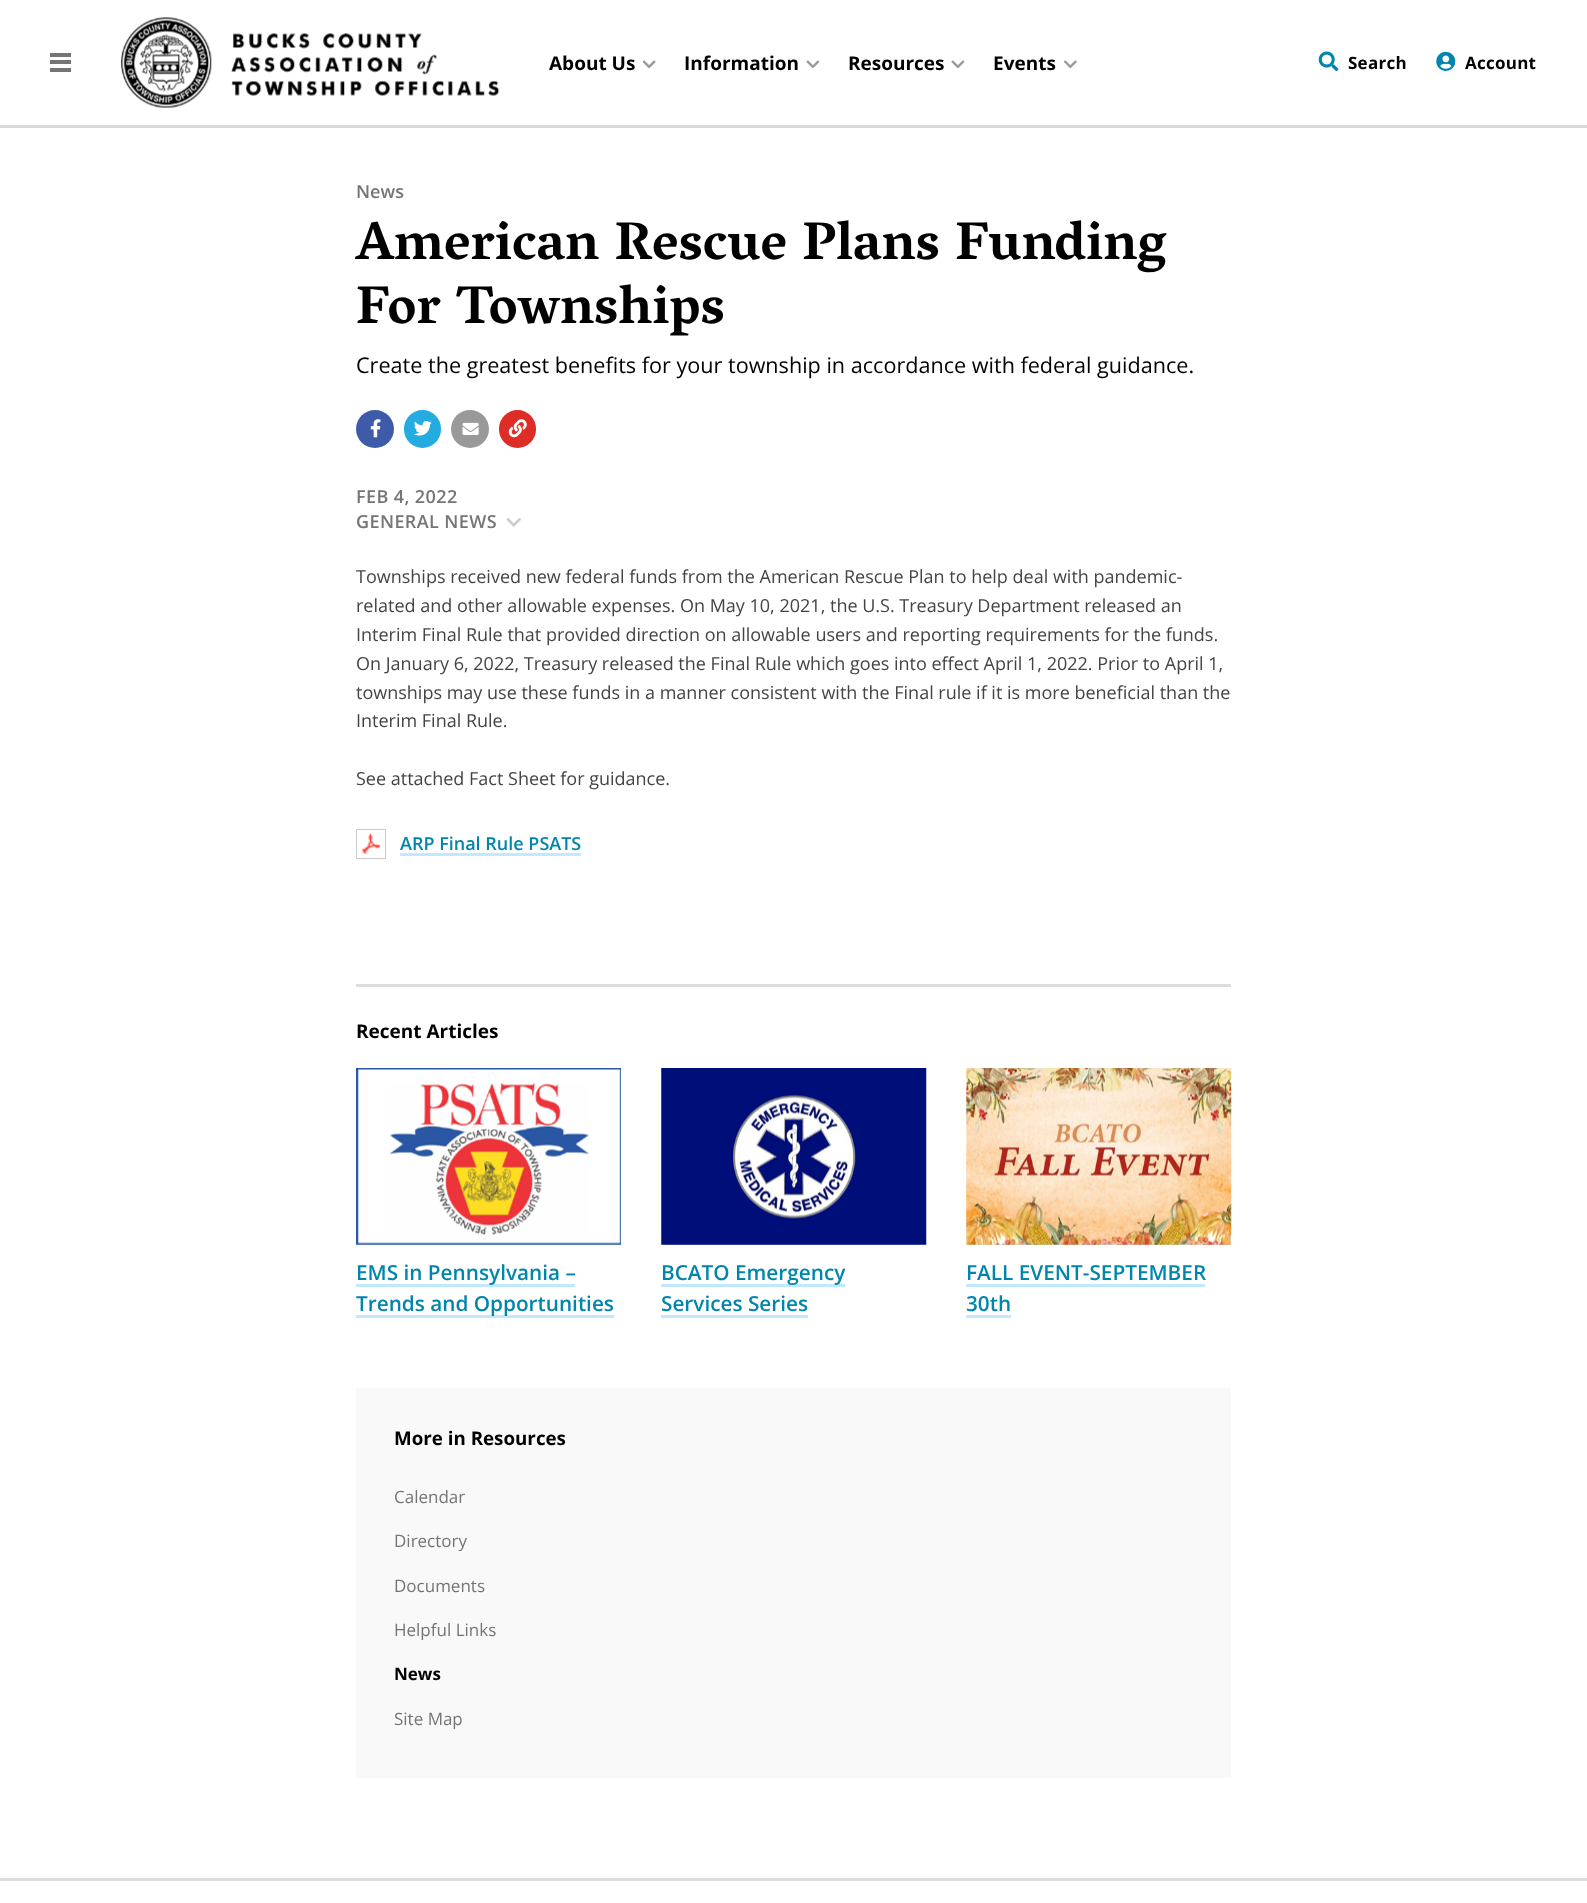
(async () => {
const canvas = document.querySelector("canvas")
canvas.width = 1587
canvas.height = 1903
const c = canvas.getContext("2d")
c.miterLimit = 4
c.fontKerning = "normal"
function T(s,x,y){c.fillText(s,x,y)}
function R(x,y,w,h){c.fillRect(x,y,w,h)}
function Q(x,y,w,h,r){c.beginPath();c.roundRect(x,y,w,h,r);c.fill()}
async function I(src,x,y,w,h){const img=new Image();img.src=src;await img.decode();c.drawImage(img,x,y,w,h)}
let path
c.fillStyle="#fff"
R(0,0,1587,1903)
c.fillStyle="#d9d9d9"
path = new Path2D("M0 125v3h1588v-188v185z")
c.fill(path)
c.fillStyle="#757575"
R(50,60,21,4)
R(50,53,21,4)
R(50,68,21,4)
await I("1.png",121,17,379,91)
c.font="bold 19px Open Sans"
c.fillStyle="#000"
T("About Us",549,70)
await I("2.png",642,60,14,9)
T("Information",684,70)
await I("3.png",806,60,14,9)
T("Resources",848,70)
await I("3.png",951,60,14,9)
T("Events",993,70)
await I("4.png",1064,60,13,9)
await I("5.png",1318,51,21,21)
c.letterSpacing="0.25px"
c.font="bold 17px Open Sans"
T("Search",1348,69)
await I("6.png",1436,51,20,20)
T("Account",1465,69)
c.letterSpacing="0px"
c.font="600 18px Open Sans"
c.fillStyle="#757575"
T("News",356,198)
c.font="bold 54px Vesper Libre"
c.fillStyle="#000"
T("American Rescue Plans Funding",356,259)
T("For Townships",356,323)
c.font="21.6px Open Sans"
T("Create the greatest benefits for your township in accordance with federal guidance.",356,373)
c.fillStyle="#3d5ba8"
c.beginPath()
c.arc(375,429,19,0,7)
c.fill()
await I("7.png",370,419,11,19)
c.fillStyle="#24abe2"
Q(404,410,37,38,18.5)
await I("8.png",414,420,18,16)
c.fillStyle="#999"
c.beginPath()
c.arc(470,429,19,0,7)
c.fill()
await I("9.png",462,422,17,13)
c.fillStyle="#de2c26"
Q(499,410,37,38,18.5)
await I("10.png",508,419,19,19)
c.letterSpacing="0.4px"
c.font="600 18px Open Sans"
c.fillStyle="#757575"
T("FEB 4, 2022",356,503)
T("GENERAL NEWS",356,528)
await I("11.png",506,518,15,9)
c.letterSpacing="0px"
c.font="18px Open Sans"
c.fillStyle="#444"
T("Townships received new federal funds from the American Rescue Plan to help deal with pandemic-",356,583)
T("related and other allowable expenses. On May 10, 2021, the U.S. Treasury Department released an",356,612)
T("Interim Final Rule that provided direction on allowable users and reporting requirements for the funds.",356,641)
T("On January 6, 2022, Treasury released the Final Rule which goes into effect April 1, 2022. Prior to April 1,",356,670)
T("townships may use these funds in a manner consistent with the Final rule if it is more beneficial than the",356,699)
T("Interim Final Rule.",356,727)
T("See attached Fact Sheet for guidance.",356,785)
await I("12.png",362,833,19,21)
c.strokeStyle="#ccc"
c.strokeRect(356.5,829.5,29,29)
c.font="600 18px Open Sans"
c.fillStyle="#0086ac"
T("ARP Final Rule PSATS",400,850)
c.fillStyle="#c0e9fd"
R(400,853,181,3)
c.fillStyle="#ddd"
R(356,984,875,3)
c.font="bold 19px Open Sans"
c.fillStyle="#000"
T("Recent Articles",356,1038)
await I("13.png",356,1068,265,177)
c.fillStyle="#c0e9fd"
R(356,1284,219,3)
c.font="600 20.75px Open Sans"
c.fillStyle="#0086ac"
T("EMS in Pennsylvania –",356,1280)
c.fillStyle="#c0e9fd"
R(356,1315,258,3)
c.fillStyle="#0086ac"
T("Trends and Opportunities",356,1311)
c.fillStyle="#c0e9fd"
R(661,1244,265,1)
await I("14.png",661,1068,266,177)
R(661,1284,184,3)
c.fillStyle="#0086ac"
T("BCATO Emergency",661,1280)
T("Services Series",661,1311)
c.fillStyle="#c0e9fd"
R(661,1315,147,3)
R(966,1244,265,1)
await I("15.png",966,1068,266,177)
c.fillStyle="#0086ac"
T("FALL EVENT-SEPTEMBER",966,1280)
c.fillStyle="#c0e9fd"
R(966,1284,239,3)
c.fillStyle="#0086ac"
T("30th",966,1311)
c.fillStyle="#c0e9fd"
R(966,1315,45,3)
c.fillStyle="#f9f9f9"
R(356,1388,875,390)
c.font="bold 18.75px Open Sans"
c.fillStyle="#000"
T("More in Resources",394,1445)
c.font="17px Open Sans"
c.fillStyle="#757575"
T("Calendar",394,1503)
T("Directory",394,1547)
T("Documents",394,1592)
T("Helpful Links",394,1636)
c.font="bold 17px Open Sans"
c.fillStyle="#000"
T("News",394,1680)
c.font="17px Open Sans"
c.fillStyle="#757575"
T("Site Map",394,1725)
c.fillStyle="#ddd"
R(0,1878,1587,3)
})()
